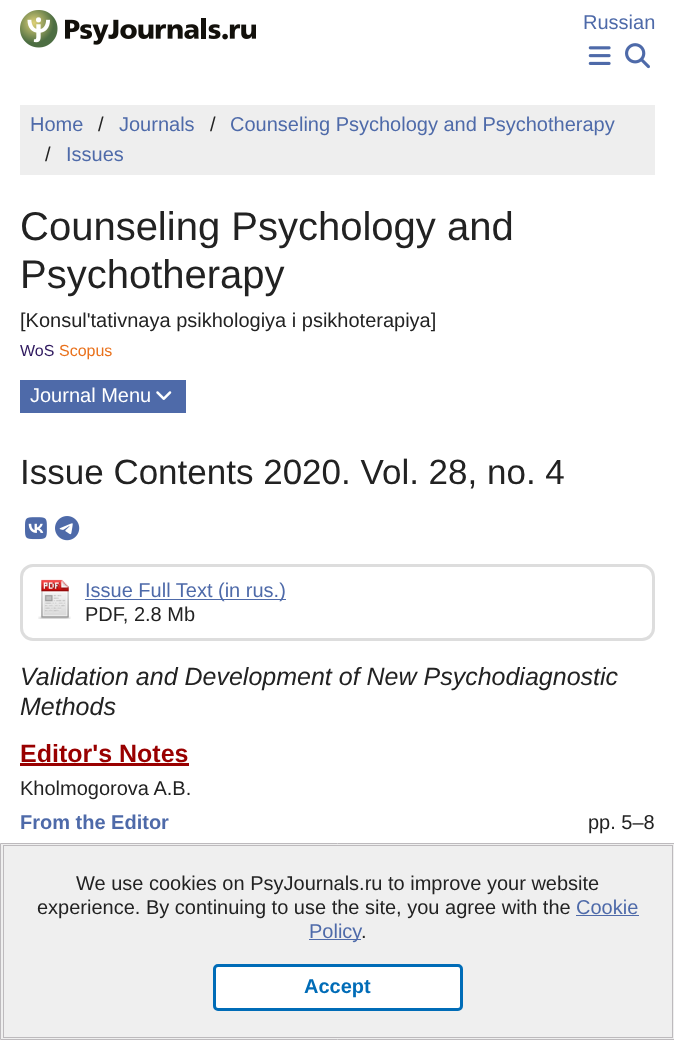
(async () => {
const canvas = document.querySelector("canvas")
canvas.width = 674
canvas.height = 1040
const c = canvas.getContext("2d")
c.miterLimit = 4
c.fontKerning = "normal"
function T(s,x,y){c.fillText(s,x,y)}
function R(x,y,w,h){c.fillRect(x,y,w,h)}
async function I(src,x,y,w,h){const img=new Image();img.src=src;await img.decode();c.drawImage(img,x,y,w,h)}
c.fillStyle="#fff"
R(0,0,674,1040)
await I("1.png",20,10,236,38)
c.font="20px Liberation Sans"
c.fillStyle="#4e6aa9"
T("Russian",583,29)
await I("2.png",588,46,23,19)
await I("3.png",625,43,25,26)
c.fillStyle="#eee"
R(20,105,635,70)
c.fillStyle="#4e6aa9"
T("Home",30,131)
c.fillStyle="#222"
T("/",98,131)
c.fillStyle="#4e6aa9"
T("Journals",119,131)
c.fillStyle="#222"
T("/",210,131)
c.fillStyle="#4e6aa9"
T("Counseling Psychology and Psychotherapy",230,131)
c.fillStyle="#222"
T("/",45,161)
c.fillStyle="#4e6aa9"
T("Issues",66,161)
c.font="40px Liberation Sans"
c.fillStyle="#222"
T("Counseling Psychology and",20,240)
T("Psychotherapy",20,288)
c.font="20px Liberation Sans"
T("[Konsul'tativnaya psikhologiya i psikhoterapiya]",20,327)
c.font="16px Liberation Sans"
c.fillStyle="#2f195f"
T("WoS",20,356)
c.fillStyle="#e9711c"
T("Scopus",59,356)
c.fillStyle="#4e6aa9"
R(20,380,166,33)
c.font="20px Liberation Sans"
c.fillStyle="#fff"
T("Journal Menu",30,402)
await I("4.png",156,391,16,9)
c.font="35px Liberation Sans"
c.fillStyle="#222"
T("Issue Contents 2020. Vol. 28, no. 4",20,484)
await I("5.png",25,517,22,23)
await I("6.png",55,516,25,25)
c.beginPath()
c.roundRect(21.5,565.5,632,74,11.5)
c.strokeStyle="#ddd"
c.lineWidth=3
c.stroke()
await I("7.png",38,579,33,40)
c.fillStyle="#4e6aa9"
R(85,599,201,1)
c.font="20px Liberation Sans"
T("Issue Full Text (in rus.)",85,597)
c.fillStyle="#222"
T("PDF, 2.8 Mb",85,621)
c.font="italic 25px Liberation Sans"
T("Validation and Development of New Psychodiagnostic",20,685)
T("Methods",20,715)
c.font="bold 25px Liberation Sans"
c.fillStyle="#900"
T("Editor's Notes",20,762)
R(20,763,169,3)
c.font="20px Liberation Sans"
c.fillStyle="#222"
T("Kholmogorova A.B.",20,795)
c.font="bold 20px Liberation Sans"
c.fillStyle="#4e6aa9"
T("From the Editor",20,829)
c.font="20px Liberation Sans"
c.fillStyle="#222"
T("pp. 5–8",588,829)
c.fillStyle="#efefef"
c.beginPath()
c.rect(.5,843.5,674,196)
c.fill()
c.strokeStyle="#bdbabd"
c.lineWidth=1
c.stroke()
c.strokeRect(3.5,845.5,669,192)
c.fillStyle="#222"
T("We use cookies on PsyJournals.ru to improve your website",76,890)
T("experience. By continuing to use the site, you agree with the",37,914)
c.fillStyle="#4e6aa9"
T("Cookie",576,914)
R(576,915,63,1)
R(309,939,52,1)
T("Policy",309,938)
c.fillStyle="#222"
T(".",361,938)
c.fillStyle="#fff"
c.beginPath()
c.roundRect(214.5,965.5,247,44,3.5)
c.fill()
c.strokeStyle="#006cb7"
c.lineWidth=3
c.stroke()
c.font="bold 20px Liberation Sans"
c.fillStyle="#006cb7"
T("Accept",304,993)
})()
